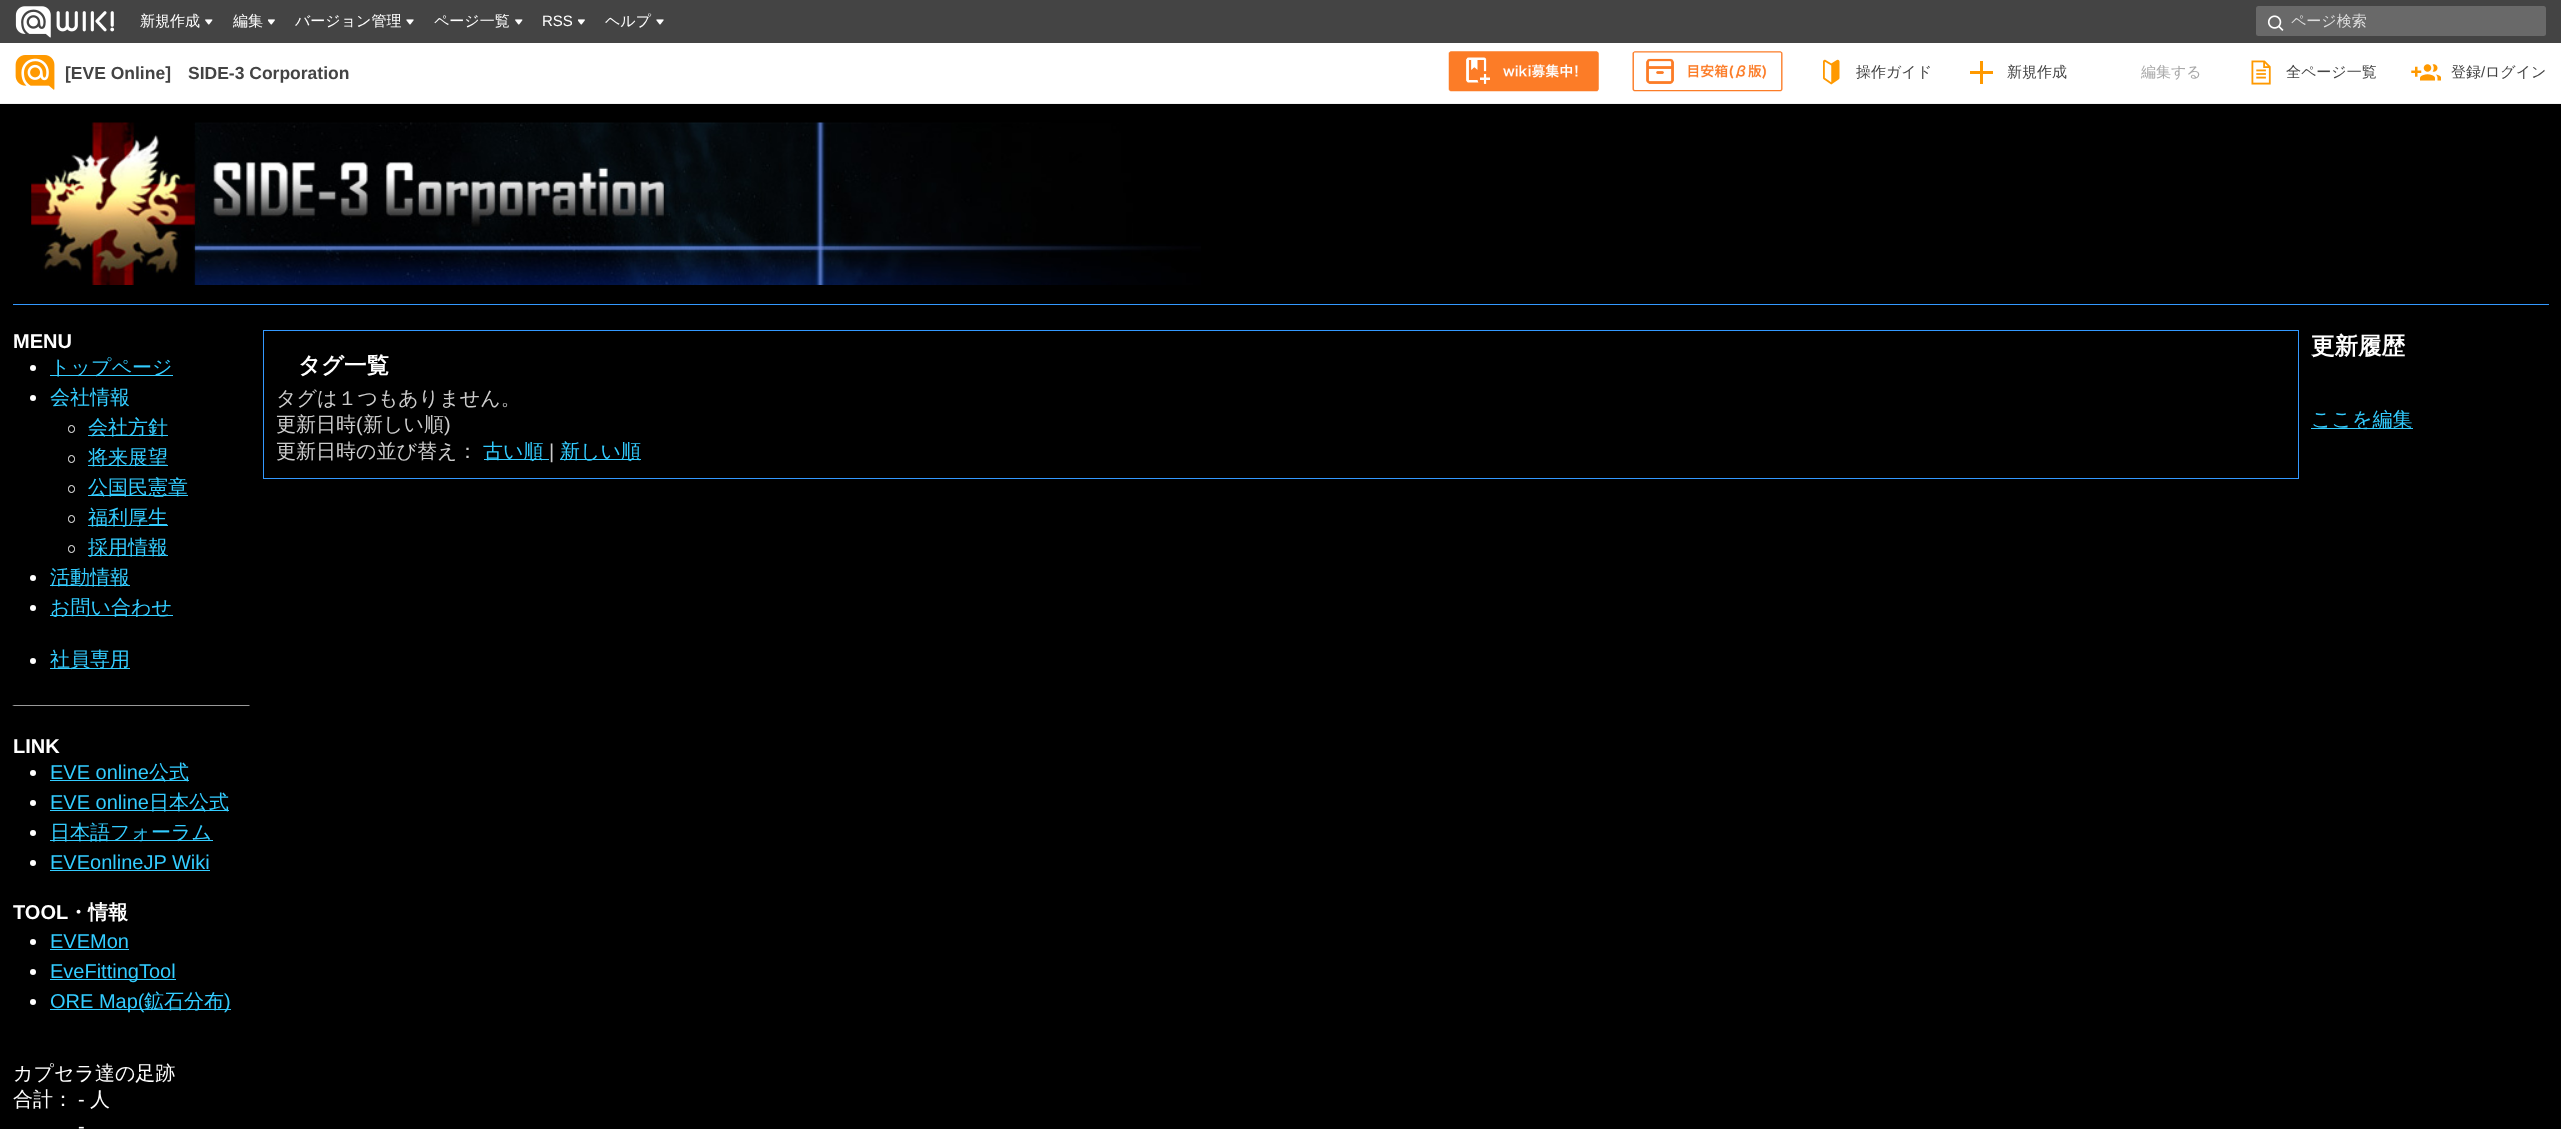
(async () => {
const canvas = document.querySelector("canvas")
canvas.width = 2561
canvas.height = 1129
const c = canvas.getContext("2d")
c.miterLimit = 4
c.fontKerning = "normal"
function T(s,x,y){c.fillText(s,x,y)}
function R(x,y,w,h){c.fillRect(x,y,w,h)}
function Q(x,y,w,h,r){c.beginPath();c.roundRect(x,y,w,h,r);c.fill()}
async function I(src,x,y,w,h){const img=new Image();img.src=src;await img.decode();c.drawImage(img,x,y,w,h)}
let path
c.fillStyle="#000"
R(0,0,2561,1129)
c.fillStyle="#444"
R(0,0,2561,43)
await I("1.png",15,6,100,32)
c.font="500 15px WenQuanYi Zen Hei"
c.fillStyle="#fff"
T("新規作成",140,26)
await I("2.png",205,19,8,6)
T("編集",233,26)
await I("3.png",268,19,7,6)
T("バージョン管理",295,26)
await I("4.png",406,19,8,6)
T("ページ一覧",434,26)
await I("2.png",515,19,8,6)
c.font="15px Liberation Sans"
T("RSS",542,26)
await I("3.png",578,19,7,6)
c.font="500 15px WenQuanYi Zen Hei"
T("ヘルプ",605,26)
await I("4.png",656,19,8,6)
c.fillStyle="#696969"
Q(2256,6,290,30,2.5)
await I("5.png",2267,15,17,16)
c.fillStyle="#ddd"
T("ページ検索",2291,26)
c.fillStyle="#fff"
R(0,43,2561,60)
c.fillStyle="#f2f2f2"
R(0,103,2561,1)
await I("6.png",15,55,40,35)
c.font="bold 17.5px Liberation Sans"
c.fillStyle="#444"
T("[EVE Online]",65,79)
T("SIDE-3 Corporation",188,79)
await I("7.png",1448,51,151,41)
await I("8.png",1632,51,151,41)
await I("9.png",1823,59,17,26)
c.font="500 15px WenQuanYi Zen Hei"
T("操作ガイド",1856,77)
c.fillStyle="#f90"
R(1970,71,23,3)
R(1980,61,3,23)
c.fillStyle="#444"
T("新規作成",2007,77)
c.fillStyle="#a8a8a8"
T("編集する",2141,77)
await I("10.png",2251,60,20,25)
c.fillStyle="#444"
T("全ページ一覧",2286,77)
await I("11.png",2411,64,30,17)
T("登録",2451,77)
c.font="15px Liberation Sans"
T("/",2481,77)
c.font="500 15px WenQuanYi Zen Hei"
T("ログイン",2485,77)
c.fillStyle="#39f"
R(13,304,2536,1)
await I("12.png",31,122,1170,163)
c.font="bold 20px Liberation Sans"
c.fillStyle="#fff"
T("MENU",13,348)
c.beginPath()
c.arc(33,368,3,0,7)
c.fill()
c.fillStyle="#3cf"
R(50,375,123,1)
c.font="500 20px WenQuanYi Zen Hei"
T("トップページ",50,374)
c.fillStyle="#fff"
c.beginPath()
c.arc(33,398,3,0,7)
c.fill()
c.fillStyle="#3cf"
T("会社情報",50,404)
c.beginPath()
c.roundRect(68.5,425.5,6,7,3)
c.strokeStyle="#fff"
c.stroke()
R(88,435,80,1)
T("会社方針",88,434)
c.beginPath()
c.roundRect(68.5,455.5,6,7,3)
c.stroke()
R(88,465,80,1)
T("将来展望",88,464)
c.beginPath()
c.roundRect(68.5,485.5,6,7,3)
c.stroke()
R(88,495,100,1)
T("公国民憲章",88,494)
c.beginPath()
c.roundRect(68.5,515.5,6,7,3)
c.stroke()
R(88,525,80,1)
T("福利厚生",88,524)
c.beginPath()
c.roundRect(68.5,545.5,6,7,3)
c.stroke()
R(88,555,80,1)
T("採用情報",88,554)
c.fillStyle="#fff"
c.beginPath()
c.arc(33,578,3,0,7)
c.fill()
c.fillStyle="#3cf"
R(50,585,80,1)
T("活動情報",50,584)
c.fillStyle="#fff"
c.beginPath()
c.arc(33,608,3,0,7)
c.fill()
c.fillStyle="#3cf"
R(50,615,123,1)
T("お問い合わせ",50,614)
c.fillStyle="#fff"
c.beginPath()
c.arc(33,661,3,0,7)
c.fill()
c.fillStyle="#3cf"
R(50,668,80,1)
T("社員専用",50,666)
c.fillStyle="#999"
path = new Path2D("M250 706h-238l2-1h235z")
c.fill(path)
c.font="bold 20px Liberation Sans"
c.fillStyle="#fff"
T("LINK",13,753)
c.beginPath()
c.arc(33,773,3,0,7)
c.fill()
c.font="20px Liberation Sans"
c.fillStyle="#3cf"
T("EVE online",50,779)
R(50,780,139,1)
c.font="500 20px WenQuanYi Zen Hei"
T("公式",149,779)
c.fillStyle="#fff"
c.beginPath()
c.arc(33,803,3,0,7)
c.fill()
c.font="20px Liberation Sans"
c.fillStyle="#3cf"
T("EVE online",50,809)
R(50,810,179,1)
c.font="500 20px WenQuanYi Zen Hei"
T("日本公式",149,809)
c.fillStyle="#fff"
c.beginPath()
c.arc(33,833,3,0,7)
c.fill()
c.fillStyle="#3cf"
R(50,840,163,1)
T("日本語フォーラム",50,839)
c.fillStyle="#fff"
c.beginPath()
c.arc(33,863,3,0,7)
c.fill()
c.font="20px Liberation Sans"
c.fillStyle="#3cf"
T("EVEonlineJP Wiki",50,869)
R(50,870,160,1)
c.font="bold 20px Liberation Sans"
c.fillStyle="#fff"
T("TOOL",13,919)
c.font="bold 20px WenQuanYi Zen Hei"
T("・情報",68,919)
c.beginPath()
c.arc(33,942,3,0,7)
c.fill()
c.font="20px Liberation Sans"
c.fillStyle="#3cf"
T("EVEMon",50,948)
R(50,949,79,1)
c.fillStyle="#fff"
c.beginPath()
c.arc(33,972,3,0,7)
c.fill()
c.fillStyle="#3cf"
R(50,979,126,1)
T("EveFittingTool",50,978)
c.fillStyle="#fff"
c.beginPath()
c.arc(33,1002,3,0,7)
c.fill()
c.fillStyle="#3cf"
R(50,1009,181,1)
T("ORE Map(",50,1008)
c.font="500 20px WenQuanYi Zen Hei"
T("鉱石分布",144,1008)
c.font="20px Liberation Sans"
T(")",224,1008)
c.font="500 20px WenQuanYi Zen Hei"
c.fillStyle="#fff"
T("カプセラ達の足跡",13,1080)
T("合計：",13,1106)
c.font="20px Liberation Sans"
T("-",78,1106)
c.font="500 20px WenQuanYi Zen Hei"
T("人",90,1106)
c.font="20px Liberation Sans"
T("-",78,1133)
c.strokeStyle="#39f"
c.strokeRect(263.5,330.5,2035,148)
c.font="bold 22.5px WenQuanYi Zen Hei"
T("タグ一覧",298,373)
c.font="500 20px WenQuanYi Zen Hei"
c.fillStyle="#ccc"
T("タグは１つもありません。",276,405)
T("更新日時",276,431)
c.font="20px Liberation Sans"
T("(",356,431)
c.font="500 20px WenQuanYi Zen Hei"
T("新しい順",363,431)
c.font="20px Liberation Sans"
T(")",444,431)
c.font="500 20px WenQuanYi Zen Hei"
T("更新日時の並び替え：",276,458)
c.fillStyle="#3cf"
R(484,459,65,1)
T("古い順",483,458)
c.font="20px Liberation Sans"
c.fillStyle="#ccc"
T("|",549,458)
c.fillStyle="#3cf"
R(560,459,81,1)
c.font="500 20px WenQuanYi Zen Hei"
T("新しい順",560,458)
c.font="bold 23.5px WenQuanYi Zen Hei"
c.fillStyle="#fff"
T("更新履歴",2311,354)
c.fillStyle="#3cf"
R(2311,428,102,1)
c.font="500 20px WenQuanYi Zen Hei"
T("ここを編集",2311,426)
})()
